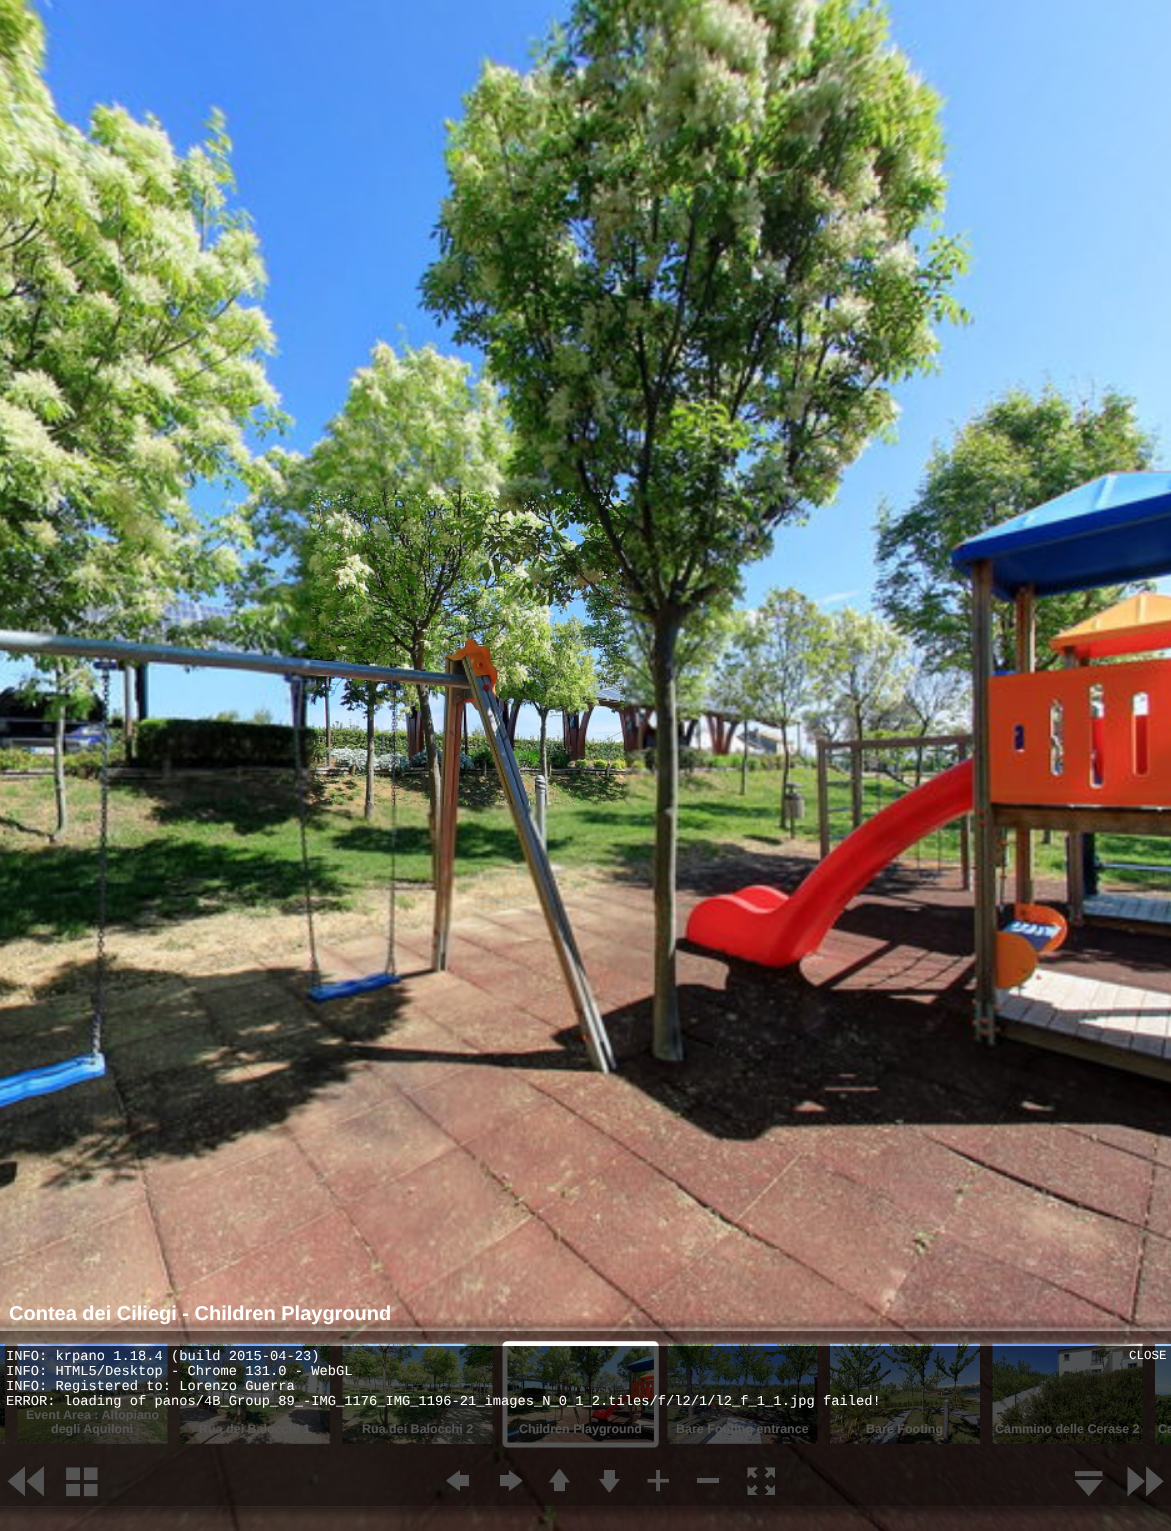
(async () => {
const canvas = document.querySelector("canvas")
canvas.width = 1171
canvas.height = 1531
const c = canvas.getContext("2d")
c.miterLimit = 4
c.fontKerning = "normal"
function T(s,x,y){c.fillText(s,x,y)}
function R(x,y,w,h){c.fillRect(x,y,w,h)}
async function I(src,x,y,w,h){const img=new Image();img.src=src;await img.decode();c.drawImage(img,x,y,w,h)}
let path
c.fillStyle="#fff"
R(0,0,1171,1531)
await I("1.png",0,0,1171,1531)
await I("2.png",0,1319,1171,13)
c.font="bold 20px Liberation Sans"
T("Contea dei Ciliegi - Children Playground",9,1320)
c.fillStyle="#00000080"
R(0,1331,1171,125)
await I("3.png",0,1344,5,100)
await I("4.png",17,1343,151,101)
c.font="bold 12.5px Liberation Sans"
c.fillStyle="#fff"
T("Event Area : Altopiano",26,1419)
T("degli Aquiloni",51,1433)
await I("5.png",180,1343,150,101)
T("Rua dei Balocchi 1",199,1433)
await I("6.png",342,1343,151,101)
T("Rua dei Balocchi 2",362,1433)
await I("7.png",507,1346,147,97)
T("Children Playground",519,1433)
await I("8.png",502,1341,157,107)
await I("9.png",667,1343,151,101)
T("Bare Footing entrance",676,1433)
await I("10.png",830,1343,150,101)
T("Bare Footing",866,1433)
await I("11.png",992,1343,151,101)
T("Cammino delle Cerase 2",995,1433)
await I("12.png",1155,1344,16,100)
T("Ca",1158,1433)
c.fillStyle="#00000080"
R(0,1456,1171,50)
await I("13.png",7,1466,37,31)
await I("14.png",66,1467,32,30)
await I("15.png",446,1469,23,23)
await I("16.png",500,1469,23,23)
await I("17.png",548,1468,23,24)
await I("18.png",598,1470,23,23)
await I("19.png",647,1470,22,22)
c.fillStyle="#fff"
R(697,1478,22,5)
await I("20.png",747,1467,28,28)
await I("21.png",1075,1471,28,26)
await I("22.png",1127,1466,37,31)
await I("23.png",0,1506,1171,13)
c.save()
path = new Path2D("M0 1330h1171v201h-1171zm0 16h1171v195h-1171z")
c.clip(path,"evenodd")
c.fillStyle="#ffffffab"
c.filter="blur(5px)"
c.beginPath()
c.rect(0,1346,1171,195)
c.fill()
c.filter="none"
c.restore()
c.fillStyle="#000000ab"
R(0,1346,1171,185)
c.font="13.75px Liberation Mono"
c.fillStyle="#fff"
T("INFO: krpano 1.18.4 (build 2015-04-23)",6,1360)
T("INFO: HTML5/Desktop - Chrome 131.0 - WebGL",6,1375)
T("INFO: Registered to: Lorenzo Guerra",6,1390)
T("ERROR: loading of panos/4B_Group_89_-IMG_1176_IMG_1196-21_images_N_0_1_2.tiles/f/l2/1/l2_f_1_1.jpg failed!",6,1405)
c.font="12.5px Liberation Mono"
T("CLOSE",1129,1359)
})()
